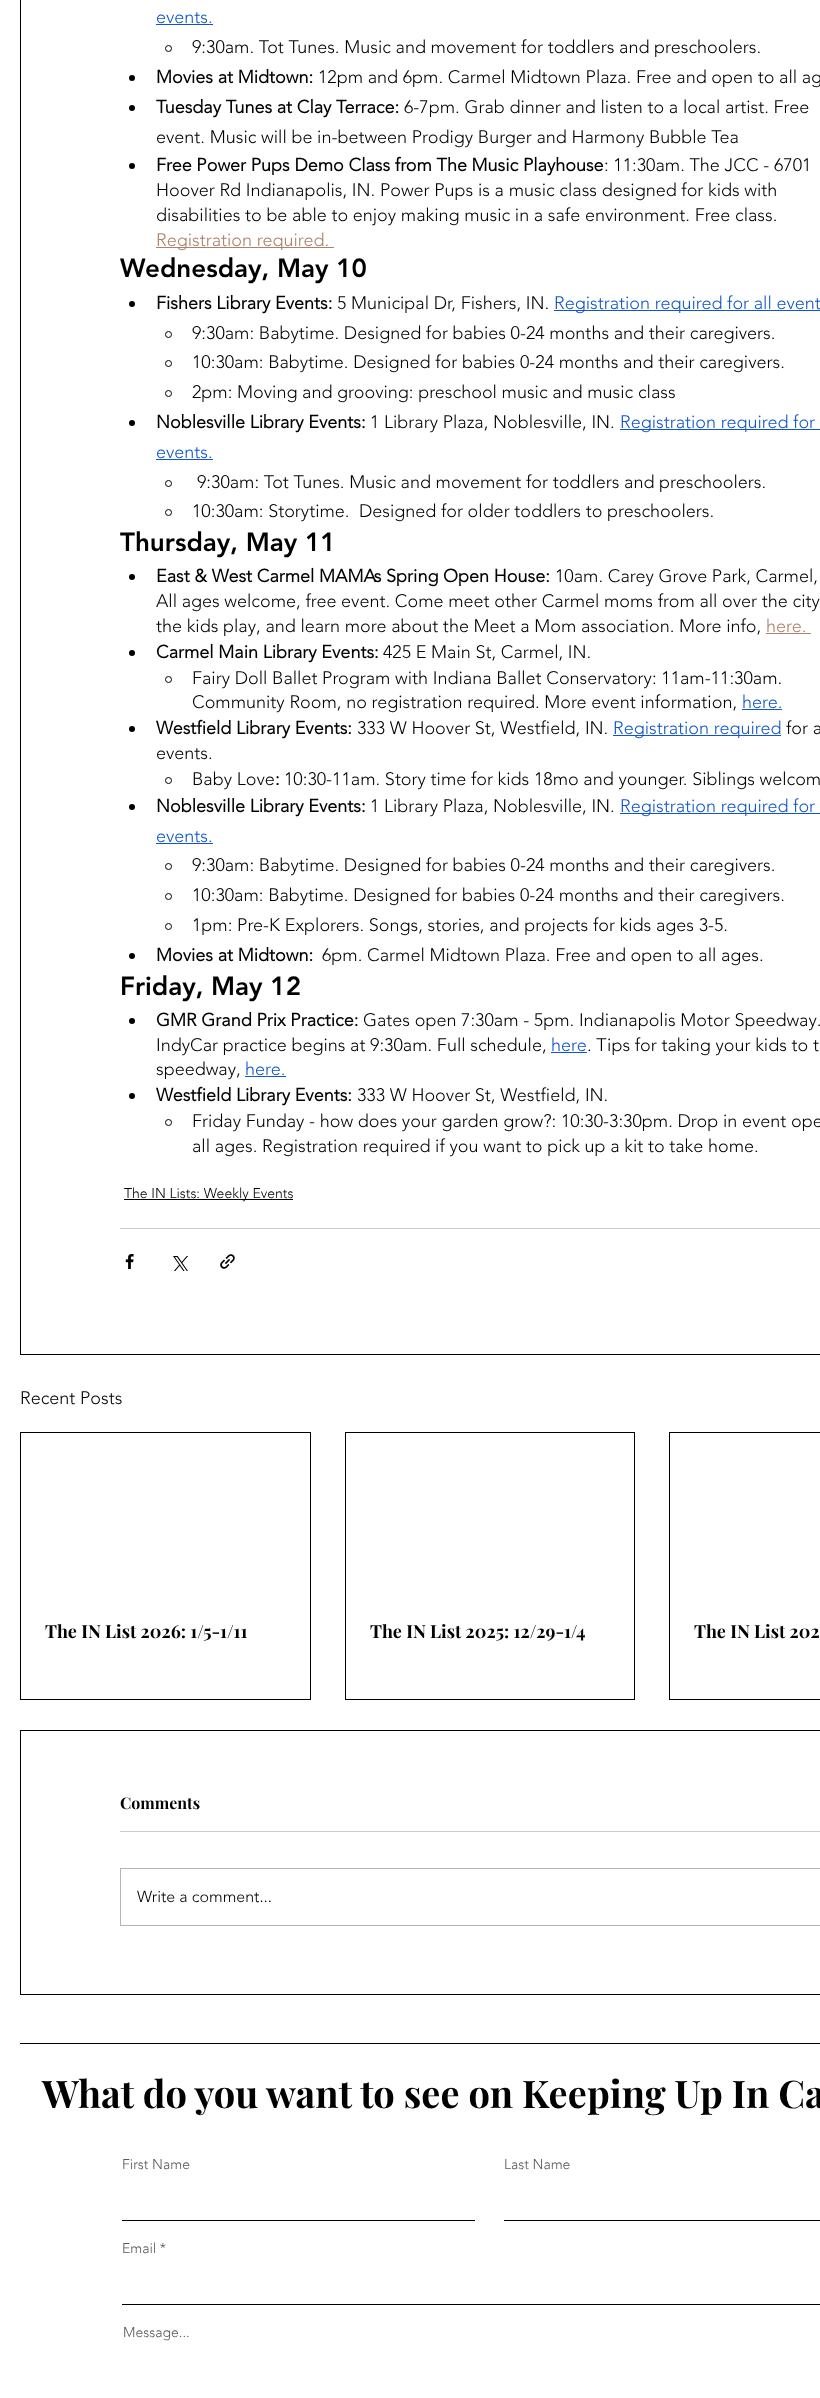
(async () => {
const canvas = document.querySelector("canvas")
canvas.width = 820
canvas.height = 2398
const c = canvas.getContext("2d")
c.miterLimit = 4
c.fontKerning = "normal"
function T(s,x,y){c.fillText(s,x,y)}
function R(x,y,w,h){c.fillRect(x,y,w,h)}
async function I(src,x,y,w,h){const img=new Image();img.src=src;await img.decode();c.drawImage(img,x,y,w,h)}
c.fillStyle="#fff"
R(0,0,820,2398)
c.strokeStyle="#000"
c.strokeRect(20.5,-.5,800,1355)
c.font="300 18px 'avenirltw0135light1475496'"
c.fillStyle="#15c"
T("events.",156,23)
R(156,24,57,1)
c.beginPath()
c.arc(168.5,48.5,3,0,7)
c.stroke()
c.fillStyle="#000"
T("9:30am. Tot Tunes. Music and movement for toddlers and preschoolers.",192,53)
c.beginPath()
c.arc(132,78,3,0,7)
c.fill()
c.font="bold 18px 'avenirltw0135light1475496'"
T("Movies at Midtown:",156,83)
c.font="300 18px 'avenirltw0135light1475496'"
T("12pm and 6pm. Carmel Midtown Plaza. Free and open to all ag",318,83)
c.beginPath()
c.arc(132,108,3,0,7)
c.fill()
c.font="bold 18px 'avenirltw0135light1475496'"
T("Tuesday Tunes at Clay Terrace:",156,113)
c.font="300 18px 'avenirltw0135light1475496'"
T("6-7pm. Grab dinner and listen to a local artist. Free",404,113)
T("event. Music will be in-between Prodigy Burger and Harmony Bubble Tea",156,143)
c.beginPath()
c.arc(132,166,3,0,7)
c.fill()
c.font="bold 18px 'avenirltw0135light1475496'"
T("Free Power Pups Demo Class from The Music Playhouse",156,171)
c.font="300 18px 'avenirltw0135light1475496'"
T(": 11:30am. The JCC - 6701",604,171)
T("Hoover Rd Indianapolis, IN. Power Pups is a music class designed for kids with",156,196)
T("disabilities to be able to enjoy making music in a safe environment. Free class.",156,221)
c.fillStyle="#ad806b"
R(156,247,178,1)
T("Registration required.",156,246)
c.font="900 26px 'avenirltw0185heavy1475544'"
c.fillStyle="#000"
T("Wednesday, May 10",120,277)
c.beginPath()
c.arc(132,304,3,0,7)
c.fill()
c.font="bold 18px 'avenirltw0135light1475496'"
T("Fishers Library Events:",156,309)
c.font="300 18px 'avenirltw0135light1475496'"
T("5 Municipal Dr, Fishers, IN.",337,309)
c.fillStyle="#15c"
R(554,310,266,1)
T("Registration required for all event",554,309)
c.beginPath()
c.arc(168.5,334.5,3,0,7)
c.stroke()
c.fillStyle="#000"
T("9:30am: Babytime. Designed for babies 0-24 months and their caregivers.",192,339)
c.beginPath()
c.arc(168.5,363.5,3,0,7)
c.stroke()
T("10:30am: Babytime. Designed for babies 0-24 months and their caregivers.",192,368)
c.beginPath()
c.arc(168.5,393.5,3,0,7)
c.stroke()
T("2pm: Moving and grooving: preschool music and music class",192,398)
c.beginPath()
c.arc(132,423,3,0,7)
c.fill()
c.font="bold 18px 'avenirltw0135light1475496'"
T("Noblesville Library Events:",156,428)
c.font="300 18px 'avenirltw0135light1475496'"
T("1 Library Plaza, Noblesville, IN.",370,428)
c.fillStyle="#15c"
R(620,429,200,1)
T("Registration required for",620,428)
T("events.",156,458)
R(156,459,57,1)
c.beginPath()
c.arc(168.5,483.5,3,0,7)
c.stroke()
c.fillStyle="#000"
T("9:30am: Tot Tunes. Music and movement for toddlers and preschoolers.",197,488)
c.beginPath()
c.arc(168.5,512.5,3,0,7)
c.stroke()
T("10:30am: Storytime.  Designed for older toddlers to preschoolers.",192,517)
c.font="900 26px 'avenirltw0185heavy1475544'"
T("Thursday, May 11",120,551)
c.beginPath()
c.arc(132,577,3,0,7)
c.fill()
c.font="bold 18px 'avenirltw0135light1475496'"
T("East & West Carmel MAMAs Spring Open House:",156,582)
c.font="300 18px 'avenirltw0135light1475496'"
T("10am. Carey Grove Park, Carmel,",555,582)
T("All ages welcome, free event. Come meet other Carmel moms from all over the city",156,607)
T("the kids play, and learn more about the Meet a Mom association. More info,",156,632)
c.fillStyle="#ad806b"
T("here.",766,632)
R(766,633,45,1)
c.fillStyle="#000"
c.beginPath()
c.arc(132,653,3,0,7)
c.fill()
c.font="bold 18px 'avenirltw0135light1475496'"
T("Carmel Main Library Events:",156,658)
c.font="300 18px 'avenirltw0135light1475496'"
T("425 E Main St, Carmel, IN.",383,658)
c.beginPath()
c.arc(168.5,679.5,3,0,7)
c.stroke()
T("Fairy Doll Ballet Program with Indiana Ballet Conservatory: 11am-11:30am.",192,684)
T("Community Room, no registration required. More event information,",192,708)
c.fillStyle="#15c"
T("here.",742,708)
R(742,709,40,1)
c.fillStyle="#000"
c.beginPath()
c.arc(132,729,3,0,7)
c.fill()
c.font="bold 18px 'avenirltw0135light1475496'"
T("Westfield Library Events:",156,734)
c.font="300 18px 'avenirltw0135light1475496'"
T("333 W Hoover St, Westfield, IN.",357,734)
c.fillStyle="#15c"
R(613,735,168,1)
T("Registration required",613,734)
c.fillStyle="#000"
T("for a",786,734)
T("events.",156,759)
c.beginPath()
c.arc(168.5,780.5,3,0,7)
c.stroke()
T("Baby Love",192,785)
c.font="bold 18px 'avenirltw0135light1475496'"
T(":",275,785)
c.font="300 18px 'avenirltw0135light1475496'"
T("10:30-11am. Story time for kids 18mo and younger. Siblings welcom",284,785)
c.beginPath()
c.arc(132,807,3,0,7)
c.fill()
c.font="bold 18px 'avenirltw0135light1475496'"
T("Noblesville Library Events:",156,812)
c.font="300 18px 'avenirltw0135light1475496'"
T("1 Library Plaza, Noblesville, IN.",370,812)
c.fillStyle="#15c"
R(620,813,200,1)
T("Registration required for",620,812)
T("events.",156,842)
R(156,843,57,1)
c.beginPath()
c.arc(168.5,866.5,3,0,7)
c.stroke()
c.fillStyle="#000"
T("9:30am: Babytime. Designed for babies 0-24 months and their caregivers.",192,871)
c.beginPath()
c.arc(168.5,896.5,3,0,7)
c.stroke()
T("10:30am: Babytime. Designed for babies 0-24 months and their caregivers.",192,901)
c.beginPath()
c.arc(168.5,926.5,3,0,7)
c.stroke()
T("1pm: Pre-K Explorers. Songs, stories, and projects for kids ages 3-5.",192,931)
c.beginPath()
c.arc(132,956,3,0,7)
c.fill()
c.font="bold 18px 'avenirltw0135light1475496'"
T("Movies at Midtown:",156,961)
c.font="300 18px 'avenirltw0135light1475496'"
T("6pm. Carmel Midtown Plaza. Free and open to all ages.",322,961)
c.font="900 26px 'avenirltw0185heavy1475544'"
T("Friday, May 12",120,995)
c.beginPath()
c.arc(132,1021,3,0,7)
c.fill()
c.font="bold 18px 'avenirltw0135light1475496'"
T("GMR Grand Prix Practice:",156,1026)
c.font="300 18px 'avenirltw0135light1475496'"
T("Gates open 7:30am - 5pm. Indianapolis Motor Speedway.",363,1026)
T("IndyCar practice begins at 9:30am. Full schedule,",156,1051)
c.fillStyle="#15c"
T("here",551,1051)
R(551,1052,36,1)
c.fillStyle="#000"
T(". Tips for taking your kids to t",587,1051)
T("speedway,",156,1075)
c.fillStyle="#15c"
T("here.",245,1075)
R(245,1076,41,1)
c.fillStyle="#000"
c.beginPath()
c.arc(132,1096,3,0,7)
c.fill()
c.font="bold 18px 'avenirltw0135light1475496'"
T("Westfield Library Events:",156,1101)
c.font="300 18px 'avenirltw0135light1475496'"
T("333 W Hoover St, Westfield, IN.",357,1101)
c.beginPath()
c.arc(168.5,1122.5,3,0,7)
c.stroke()
T("Friday Funday - how does your garden grow?: 10:30-3:30pm. Drop in event ope",192,1127)
T("all ages. Registration required if you want to pick up a kit to take home.",192,1152)
R(124,1199,169,1)
c.font="300 14px 'avenirltw0135light1475496'"
T("The IN Lists: Weekly Events",124,1198)
c.fillStyle="#ccc"
R(120,1228,700,1)
await I("1.png",125,1254,9,15)
await I("2.png",173,1256,15,15)
await I("3.png",220,1254,15,15)
c.font="300 18px 'avenirltw0135light1475496'"
c.fillStyle="#000"
T("Recent Posts",20,1404)
c.strokeRect(20.5,1432.5,290,267)
c.font="bold 18px Playfair Display"
T("The IN List 2026: 1/5-1/11",45,1638)
c.strokeRect(345.5,1432.5,289,267)
T("The IN List 2025: 12/29-1/4",370,1638)
c.strokeRect(669.5,1432.5,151,267)
T("The IN List 202",694,1638)
c.strokeRect(20.5,1730.5,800,264)
c.font="bold 16px Playfair Display"
T("Comments",120,1809)
c.fillStyle="#ccc"
R(120,1831,700,1)
c.strokeStyle="#b3b3b3"
c.strokeRect(120.5,1868.5,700,57)
c.font="300 16px 'avenirltw0135light1475496'"
c.fillStyle="#000"
T("Write a comment...",137,1902)
R(20,2043,800,1)
c.font="bold 38px Playfair Display"
T("What do you want to see on Keeping Up In Ca",42,2108)
c.font="300 14px 'avenirltw0135light1475496'"
c.fillStyle="#595959"
T("First Name",122,2169)
c.fillStyle="#000"
R(122,2220,353,1)
c.fillStyle="#595959"
T("Last Name",504,2169)
c.fillStyle="#000"
R(504,2220,316,1)
c.fillStyle="#595959"
T("Email *",122,2253)
c.fillStyle="#000"
R(122,2304,698,1)
c.fillStyle="#595959"
T("Message...",123,2337)
})()
